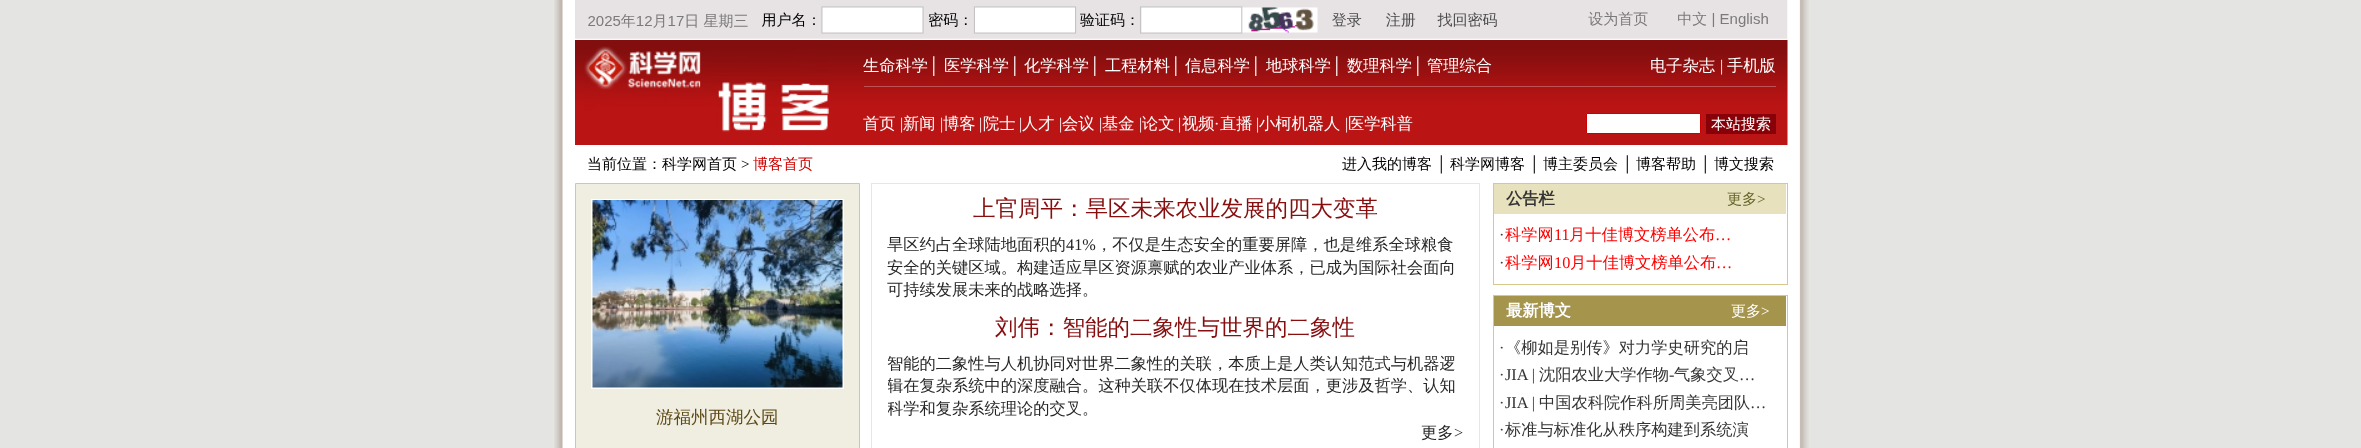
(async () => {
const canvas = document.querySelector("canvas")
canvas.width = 2361
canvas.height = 448
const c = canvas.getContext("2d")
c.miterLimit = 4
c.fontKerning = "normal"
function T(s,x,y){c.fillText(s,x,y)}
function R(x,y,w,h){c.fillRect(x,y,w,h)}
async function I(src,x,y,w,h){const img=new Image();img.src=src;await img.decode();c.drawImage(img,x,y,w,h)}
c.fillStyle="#e4e4e2"
R(0,0,2361,448)
await I("1.png",554,0,1255,448)
await I("2.png",575,0,1213,40)
await I("3.png",575,40,1213,105)
await I("4.png",584,46,245,86)
c.fillStyle="#bd5354"
R(864,86,912,1)
c.font="500 16.25px WenQuanYi Zen Hei"
c.fillStyle="#fff"
T("生命科学",863,71)
c.font="16.25px Liberation Serif"
T("│",928,71)
c.font="500 16.25px WenQuanYi Zen Hei"
T("医学科学",944,71)
c.font="16.25px Liberation Serif"
T("│",1009,71)
c.font="500 16.25px WenQuanYi Zen Hei"
T("化学科学",1024,71)
c.font="16.25px Liberation Serif"
T("│",1089,71)
c.font="500 16.25px WenQuanYi Zen Hei"
T("工程材料",1105,71)
c.font="16.25px Liberation Serif"
T("│",1170,71)
c.font="500 16.25px WenQuanYi Zen Hei"
T("信息科学",1185,71)
c.font="16.25px Liberation Serif"
T("│",1250,71)
c.font="500 16.25px WenQuanYi Zen Hei"
T("地球科学",1266,71)
c.font="16.25px Liberation Serif"
T("│",1331,71)
c.font="500 16.25px WenQuanYi Zen Hei"
T("数理科学",1347,71)
c.font="16.25px Liberation Serif"
T("│",1412,71)
c.font="500 16.25px WenQuanYi Zen Hei"
T("管理综合",1427,71)
T("电子杂志",1650,71)
c.font="16.25px Liberation Serif"
T("|",1720,71)
c.font="500 16.25px WenQuanYi Zen Hei"
T("手机版",1727,71)
T("首页",863,129)
c.font="16.25px Liberation Serif"
T("|",900,129)
c.font="500 16.25px WenQuanYi Zen Hei"
T("新闻",903,129)
c.font="16.25px Liberation Serif"
T("|",940,129)
c.font="500 16.25px WenQuanYi Zen Hei"
T("博客",943,129)
c.font="16.25px Liberation Serif"
T("|",979,129)
c.font="500 16.25px WenQuanYi Zen Hei"
T("院士",983,129)
c.font="16.25px Liberation Serif"
T("|",1019,129)
c.font="500 16.25px WenQuanYi Zen Hei"
T("人才",1022,129)
c.font="16.25px Liberation Serif"
T("|",1059,129)
c.font="500 16.25px WenQuanYi Zen Hei"
T("会议",1062,129)
c.font="16.25px Liberation Serif"
T("|",1099,129)
c.font="500 16.25px WenQuanYi Zen Hei"
T("基金",1102,129)
c.font="16.25px Liberation Serif"
T("|",1139,129)
c.font="500 16.25px WenQuanYi Zen Hei"
T("论文",1142,129)
c.font="16.25px Liberation Serif"
T("|",1178,129)
c.font="500 16.25px WenQuanYi Zen Hei"
T("视频",1182,129)
c.font="16.25px Liberation Serif"
T("·",1214,129)
c.font="500 16.25px WenQuanYi Zen Hei"
T("直播",1220,129)
c.font="16.25px Liberation Serif"
T("|",1256,129)
c.font="500 16.25px WenQuanYi Zen Hei"
T("小柯机器人",1259,129)
c.font="16.25px Liberation Serif"
T("|",1345,129)
c.font="500 16.25px WenQuanYi Zen Hei"
T("医学科普",1348,129)
c.beginPath()
c.rect(1586.5,113.5,114,20)
c.fill()
c.strokeStyle="#c00"
c.stroke()
c.fillStyle="#880008"
R(1706,114,70,20)
c.font="500 15px WenQuanYi Zen Hei"
c.fillStyle="#fff"
T("本站搜索",1711,129)
c.fillStyle="#000"
T("当前位置：科学网首页",587,169)
c.font="15px Liberation Serif"
T(">",741,169)
c.font="500 15px WenQuanYi Zen Hei"
c.fillStyle="#c00"
T("博客首页",753,169)
c.fillStyle="#000"
T("进入我的博客",1342,169)
c.font="15px Liberation Serif"
T("│",1436,169)
c.font="500 15px WenQuanYi Zen Hei"
T("科学网博客",1450,169)
c.font="15px Liberation Serif"
T("│",1529,169)
c.font="500 15px WenQuanYi Zen Hei"
T("博主委员会",1543,169)
c.font="15px Liberation Serif"
T("│",1622,169)
c.font="500 15px WenQuanYi Zen Hei"
T("博客帮助",1636,169)
c.font="15px Liberation Serif"
T("│",1700,169)
c.font="500 15px WenQuanYi Zen Hei"
T("博文搜索",1714,169)
c.fillStyle="#efeee1"
c.beginPath()
c.rect(575.5,183.5,284,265)
c.fill()
c.strokeStyle="#d7c98e"
c.stroke()
c.fillStyle="#fff"
R(591,199,253,190)
await I("5.png",592,200,251,188)
c.font="500 17.5px WenQuanYi Zen Hei"
c.fillStyle="#5c4916"
T("游福州西湖公园",656,423)
c.strokeStyle="#e6e6e6"
c.strokeRect(871.5,183.5,608,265)
c.font="500 22.5px WenQuanYi Zen Hei"
c.fillStyle="#860e0f"
T("上官周平：旱区未来农业发展的四大变革",973,216)
c.font="500 16.25px WenQuanYi Zen Hei"
c.fillStyle="#262626"
T("旱区约占全球陆地面积的",887,250)
c.font="16.25px Liberation Serif"
T("41%",1066,250)
c.font="500 16.25px WenQuanYi Zen Hei"
T("，不仅是生态安全的重要屏障，也是维系全球粮食",1096,250)
T("安全的关键区域。构建适应旱区资源禀赋的农业产业体系，已成为国际社会面向",887,273)
T("可持续发展未来的战略选择。",887,295)
c.font="500 22.5px WenQuanYi Zen Hei"
c.fillStyle="#860e0f"
T("刘伟：智能的二象性与世界的二象性",995,335)
c.font="500 16.25px WenQuanYi Zen Hei"
c.fillStyle="#262626"
T("智能的二象性与人机协同对世界二象性的关联，本质上是人类认知范式与机器逻",887,369)
c.save()
c.beginPath()
c.rect(888,353,575,68)
c.clip()
T("辑在复杂系统中的深度融合。这种关联不仅体现在技术层面，更涉及哲学、认知",887,391)
T("科学和复杂系统理论的交叉。",887,414)
c.restore()
T("更多",1421,438)
c.font="16.25px Liberation Serif"
T(">",1454,438)
c.strokeStyle="#d7c98e"
c.strokeRect(1493.5,183.5,294,101)
c.fillStyle="#e7e1bd"
R(1494,184,292,30)
c.font="bold 16.25px WenQuanYi Zen Hei"
c.fillStyle="#343434"
T("公告栏",1506,204)
c.font="500 15px WenQuanYi Zen Hei"
c.fillStyle="#676429"
T("更多",1727,204)
c.font="15px Liberation Serif"
T(">",1757,204)
c.font="16.25px Liberation Serif"
c.fillStyle="#3a3a3a"
T("·",1499,240)
c.font="500 16.25px WenQuanYi Zen Hei"
c.fillStyle="#f00"
T("科学网",1505,240)
c.font="16.25px Liberation Serif"
T("11",1554,240)
c.font="500 16.25px WenQuanYi Zen Hei"
T("月十佳博文榜单公布",1569,240)
c.font="16.25px Liberation Serif"
T("…",1715,240)
c.fillStyle="#3a3a3a"
T("·",1499,268)
c.font="500 16.25px WenQuanYi Zen Hei"
c.fillStyle="#f00"
T("科学网",1505,268)
c.font="16.25px Liberation Serif"
T("10",1554,268)
c.font="500 16.25px WenQuanYi Zen Hei"
T("月十佳博文榜单公布",1570,268)
c.font="16.25px Liberation Serif"
T("…",1716,268)
c.strokeRect(1493.5,295.5,294,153)
c.fillStyle="#a5944c"
R(1494,296,292,30)
c.font="bold 16.25px WenQuanYi Zen Hei"
c.fillStyle="#fff"
T("最新博文",1506,316)
c.font="500 15px WenQuanYi Zen Hei"
T("更多",1731,316)
c.font="15px Liberation Serif"
T(">",1761,316)
c.font="16.25px Liberation Serif"
c.fillStyle="#3a3a3a"
T("·",1499,353)
c.font="500 16.25px WenQuanYi Zen Hei"
c.fillStyle="#343434"
T("《柳如是别传》对力学史研究的启",1505,353)
c.font="16.25px Liberation Serif"
c.fillStyle="#3a3a3a"
T("·",1499,380)
c.fillStyle="#343434"
T("JIA |",1505,380)
c.font="500 16.25px WenQuanYi Zen Hei"
T("沈阳农业大学作物",1539,380)
c.font="16.25px Liberation Serif"
T("-",1669,380)
c.font="500 16.25px WenQuanYi Zen Hei"
T("气象交叉",1674,380)
c.font="16.25px Liberation Serif"
T("…",1739,380)
c.fillStyle="#3a3a3a"
T("·",1499,408)
c.fillStyle="#343434"
T("JIA |",1505,408)
c.font="500 16.25px WenQuanYi Zen Hei"
T("中国农科院作科所周美亮团队",1539,408)
c.font="16.25px Liberation Serif"
T("…",1750,408)
c.fillStyle="#3a3a3a"
T("·",1499,435)
c.font="500 16.25px WenQuanYi Zen Hei"
c.fillStyle="#343434"
T("标准与标准化从秩序构建到系统演",1505,435)
})()
